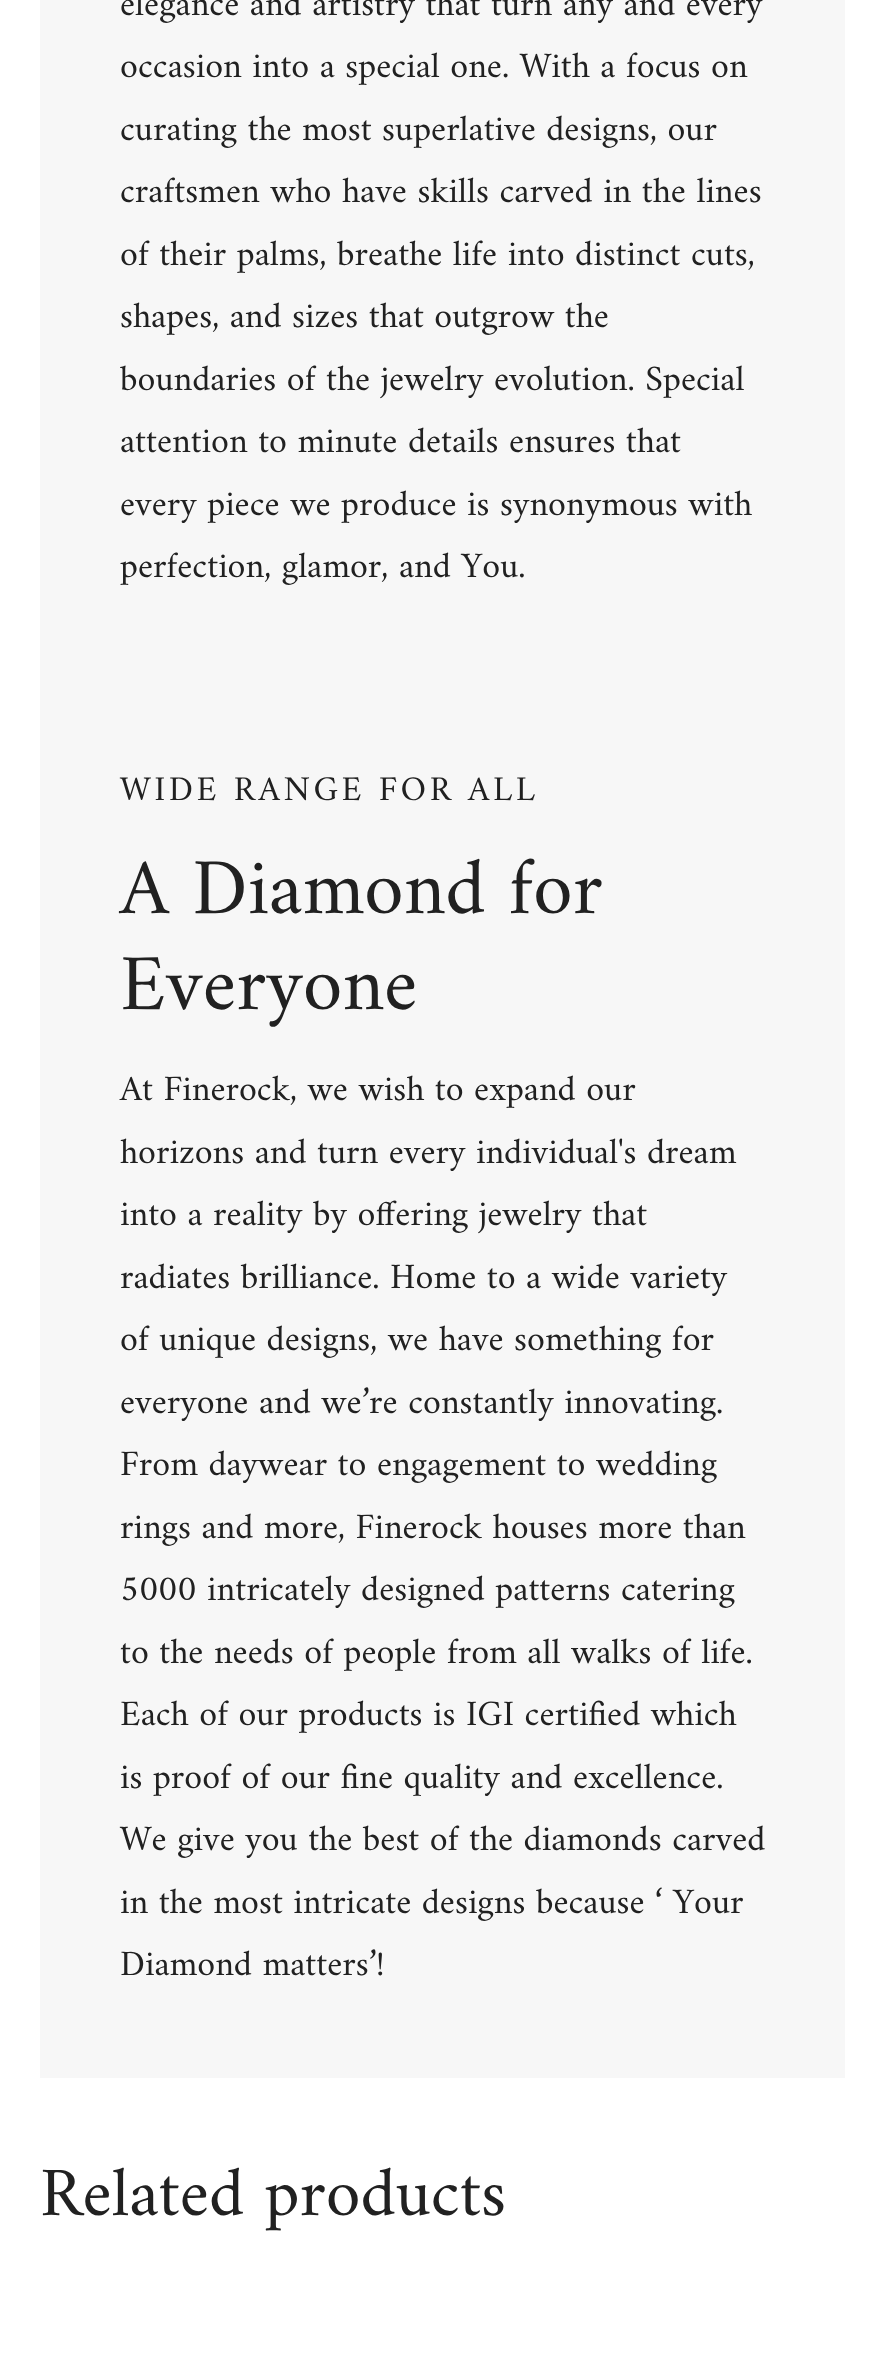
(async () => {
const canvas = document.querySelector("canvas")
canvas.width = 883
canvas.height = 2375
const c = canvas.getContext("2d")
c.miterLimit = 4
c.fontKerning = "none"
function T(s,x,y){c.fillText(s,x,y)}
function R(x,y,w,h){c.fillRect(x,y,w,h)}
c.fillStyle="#fff"
R(0,0,883,2375)
c.fillStyle="#f7f7f7"
R(40,0,805,2078)
c.font="36px Amiri"
c.fillStyle="#212121"
T("elegance and artistry that turn any and every",120,15)
T("occasion into a special one. With a focus on",120,77)
T("curating the most superlative designs, our",120,140)
T("craftsmen who have skills carved in the lines",120,202)
T("of their palms, breathe life into distinct cuts,",120,265)
T("shapes, and sizes that outgrow the",120,327)
T("boundaries of the jewelry evolution. Special",120,390)
T("attention to minute details ensures that",120,452)
T("every piece we produce is synonymous with",120,515)
T("perfection, glamor, and You.",120,577)
c.letterSpacing="3.5px"
c.font="35px Amiri"
T("WIDE RANGE FOR ALL",120,800)
c.letterSpacing="0px"
c.font="80px Amiri"
T("A Diamond for",120,913)
T("Everyone",120,1009)
c.font="36px Amiri"
T("At Finerock, we wish to expand our",120,1100)
T("horizons and turn every individual's dream",120,1163)
T("into a reality by offering jewelry that",120,1225)
T("radiates brilliance. Home to a wide variety",120,1288)
T("of unique designs, we have something for",120,1350)
T("everyone and we’re constantly innovating.",120,1413)
T("From daywear to engagement to wedding",120,1475)
T("rings and more, Finerock houses more than",120,1538)
T("5000 intricately designed patterns catering",120,1600)
T("to the needs of people from all walks of life.",120,1663)
T("Each of our products is IGI certified which",120,1725)
T("is proof of our fine quality and excellence.",120,1788)
T("We give you the best of the diamonds carved",120,1850)
T("in the most intricate designs because ‘ Your",120,1913)
T("Diamond matters’!",120,1975)
c.font="70px Amiri"
T("Related products",40,2215)
})()
